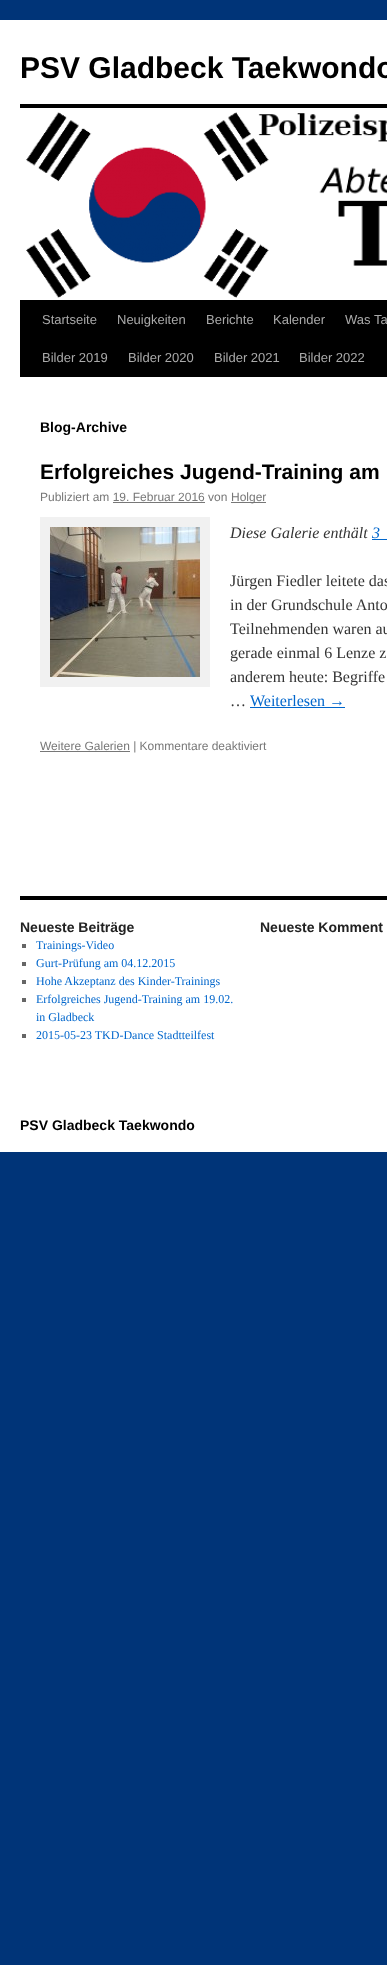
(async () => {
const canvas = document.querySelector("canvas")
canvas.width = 387
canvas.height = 1965
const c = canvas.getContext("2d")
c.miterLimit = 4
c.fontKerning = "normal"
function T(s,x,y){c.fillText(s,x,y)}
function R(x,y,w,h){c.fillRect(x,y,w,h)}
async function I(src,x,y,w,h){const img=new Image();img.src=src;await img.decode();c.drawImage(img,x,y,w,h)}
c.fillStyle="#003478"
R(0,0,387,1965)
c.fillStyle="#fff"
R(0,20,387,1132)
c.font="bold 30px Liberation Sans"
c.fillStyle="#000"
T("PSV Gladbeck Taekwondo",20,78)
R(20,104,367,4)
R(20,300,367,77)
await I("1.png",26,112,361,186)
c.font="13px Liberation Sans"
c.fillStyle="#aaa"
T("Startseite",42,324)
T("Neuigkeiten",117,324)
T("Berichte",206,324)
T("Kalender",273,324)
T("Was Ta",345,324)
T("Bilder 2019",42,362)
T("Bilder 2020",128,362)
T("Bilder 2021",214,362)
T("Bilder 2022",299,362)
c.font="bold 14px Liberation Sans"
c.fillStyle="#000"
T("Blog-Archive",40,432)
c.font="bold 21px Liberation Sans"
T("Erfolgreiches Jugend-Training am",40,479)
c.font="12px Liberation Sans"
c.fillStyle="#777"
T("Publiziert am 19. Februar 2016 von",40,501)
R(231,502,35,1)
T("Holger",231,501)
R(113,502,92,1)
c.strokeStyle="#f1f1f1"
c.lineWidth=10
c.strokeRect(45,522,160,160)
await I("2.png",50,527,150,150)
c.font="italic 16px Liberation Serif"
c.fillStyle="#333"
T("Diese Galerie enthält",230,538)
c.fillStyle="#06c"
T("3",372,538)
R(372,539,15,1)
c.font="16px Liberation Serif"
c.fillStyle="#333"
T("Jürgen Fiedler leitete das",230,586)
T("in der Grundschule Anto",230,610)
T("Teilnehmenden waren au",230,634)
T("gerade einmal 6 Lenze z",230,658)
T("anderem heute: Begriffe",230,682)
T("…",230,706)
c.fillStyle="#06c"
T("Weiterlesen →",250,706)
R(250,707,95,1)
c.fillStyle="#777"
R(40,751,90,1)
c.font="12px Liberation Sans"
T("Weitere Galerien | Kommentare deaktiviert",40,750)
c.fillStyle="#000"
R(20,896,367,4)
c.font="bold 14px Liberation Sans"
c.fillStyle="#222"
T("Neueste Beiträge",20,932)
c.fillStyle="#666"
R(22,944,4,4)
c.font="12px Liberation Serif"
c.fillStyle="#06c"
T("Trainings-Video",36,949)
c.fillStyle="#666"
R(22,962,4,4)
c.fillStyle="#06c"
T("Gurt-Prüfung am 04.12.2015",36,967)
c.fillStyle="#666"
R(22,980,4,4)
c.fillStyle="#06c"
T("Hohe Akzeptanz des Kinder-Trainings",36,985)
c.fillStyle="#666"
R(22,998,4,4)
c.fillStyle="#06c"
T("Erfolgreiches Jugend-Training am 19.02.",36,1003)
T("in Gladbeck",36,1021)
c.fillStyle="#666"
R(22,1034,4,4)
c.fillStyle="#06c"
T("2015-05-23 TKD-Dance Stadtteilfest",36,1039)
c.font="bold 14px Liberation Sans"
c.fillStyle="#222"
T("Neueste Komment",260,932)
c.fillStyle="#000"
T("PSV Gladbeck Taekwondo",20,1130)
})()
